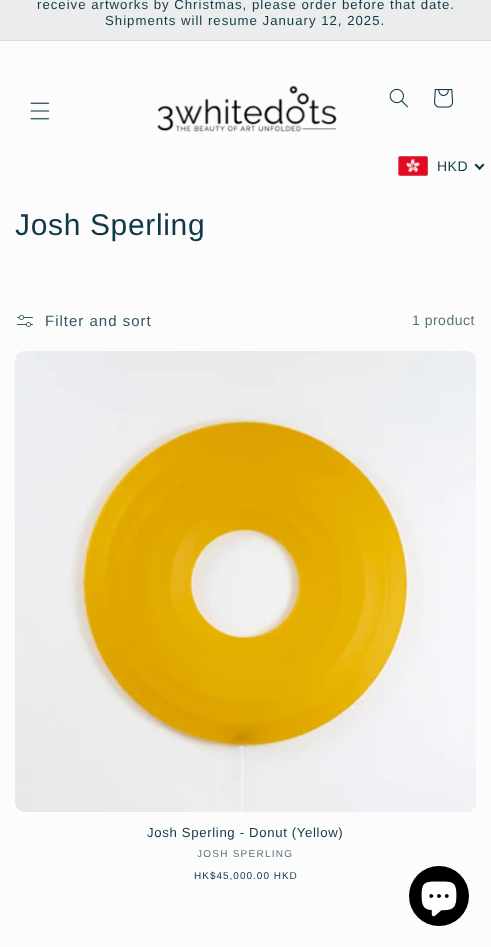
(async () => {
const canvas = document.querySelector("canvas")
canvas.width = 491
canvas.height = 947
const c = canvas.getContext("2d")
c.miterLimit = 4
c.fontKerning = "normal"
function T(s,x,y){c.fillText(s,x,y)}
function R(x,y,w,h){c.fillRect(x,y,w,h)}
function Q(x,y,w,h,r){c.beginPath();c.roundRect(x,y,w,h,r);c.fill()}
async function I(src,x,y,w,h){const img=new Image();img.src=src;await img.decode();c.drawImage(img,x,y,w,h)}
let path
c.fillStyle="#fcfcfc"
R(0,0,491,947)
c.fillStyle="#ebeced"
R(0,0,491,40)
c.fillStyle="#d9dee0"
R(0,40,491,1)
c.letterSpacing="1px"
c.font="13.2px Liberation Sans"
c.fillStyle="#103948"
T("receive artworks by Christmas, please order before that date.",37,9)
T("Shipments will resume January 12, 2025.",105,25)
await I("1.png",30,102,20,18)
await I("2.png",157,85,180,47)
await I("3.png",389,88,19,20)
await I("4.png",434,89,20,19)
await I("5.png",398,156,30,20)
c.letterSpacing="0.5px"
c.font="14px Liberation Sans"
T("HKD",437,171)
path = new Path2D("M483 163.5l1.5 1.5l-5 5l-1.5-1.5z")
c.fill(path)
path = new Path2D("M476 163.5l5 5l-1.5 1.5l-5-5z")
c.fill(path)
c.letterSpacing="0.65px"
c.font="30px Liberation Sans"
T("Josh Sperling",15,235)
await I("6.png",17,315,16,12)
c.letterSpacing="1px"
c.font="15px Liberation Sans"
c.fillStyle="#335663"
T("Filter and sort",45,326)
c.letterSpacing="0.5px"
c.font="14px Liberation Sans"
c.fillStyle="#57747e"
T("1 product",412,325)
c.fillStyle="#ebeced"
Q(15,351,461,461,10)
await I("7.png",15,351,461,461)
c.letterSpacing="0.65px"
c.font="13.2px Liberation Sans"
c.fillStyle="#103948"
T("Josh Sperling - Donut (Yellow)",147,837)
c.letterSpacing="1.25px"
c.font="10px Liberation Sans"
c.fillStyle="#57747e"
T("JOSH SPERLING",197,857)
c.letterSpacing="1px"
c.fillStyle="#103948"
T("HK$45,000.00 HKD",194,879)
c.fillStyle="#000"
c.beginPath()
c.arc(439,896,30,0,7)
c.fill()
await I("8.png",421,881,36,36)
})()
